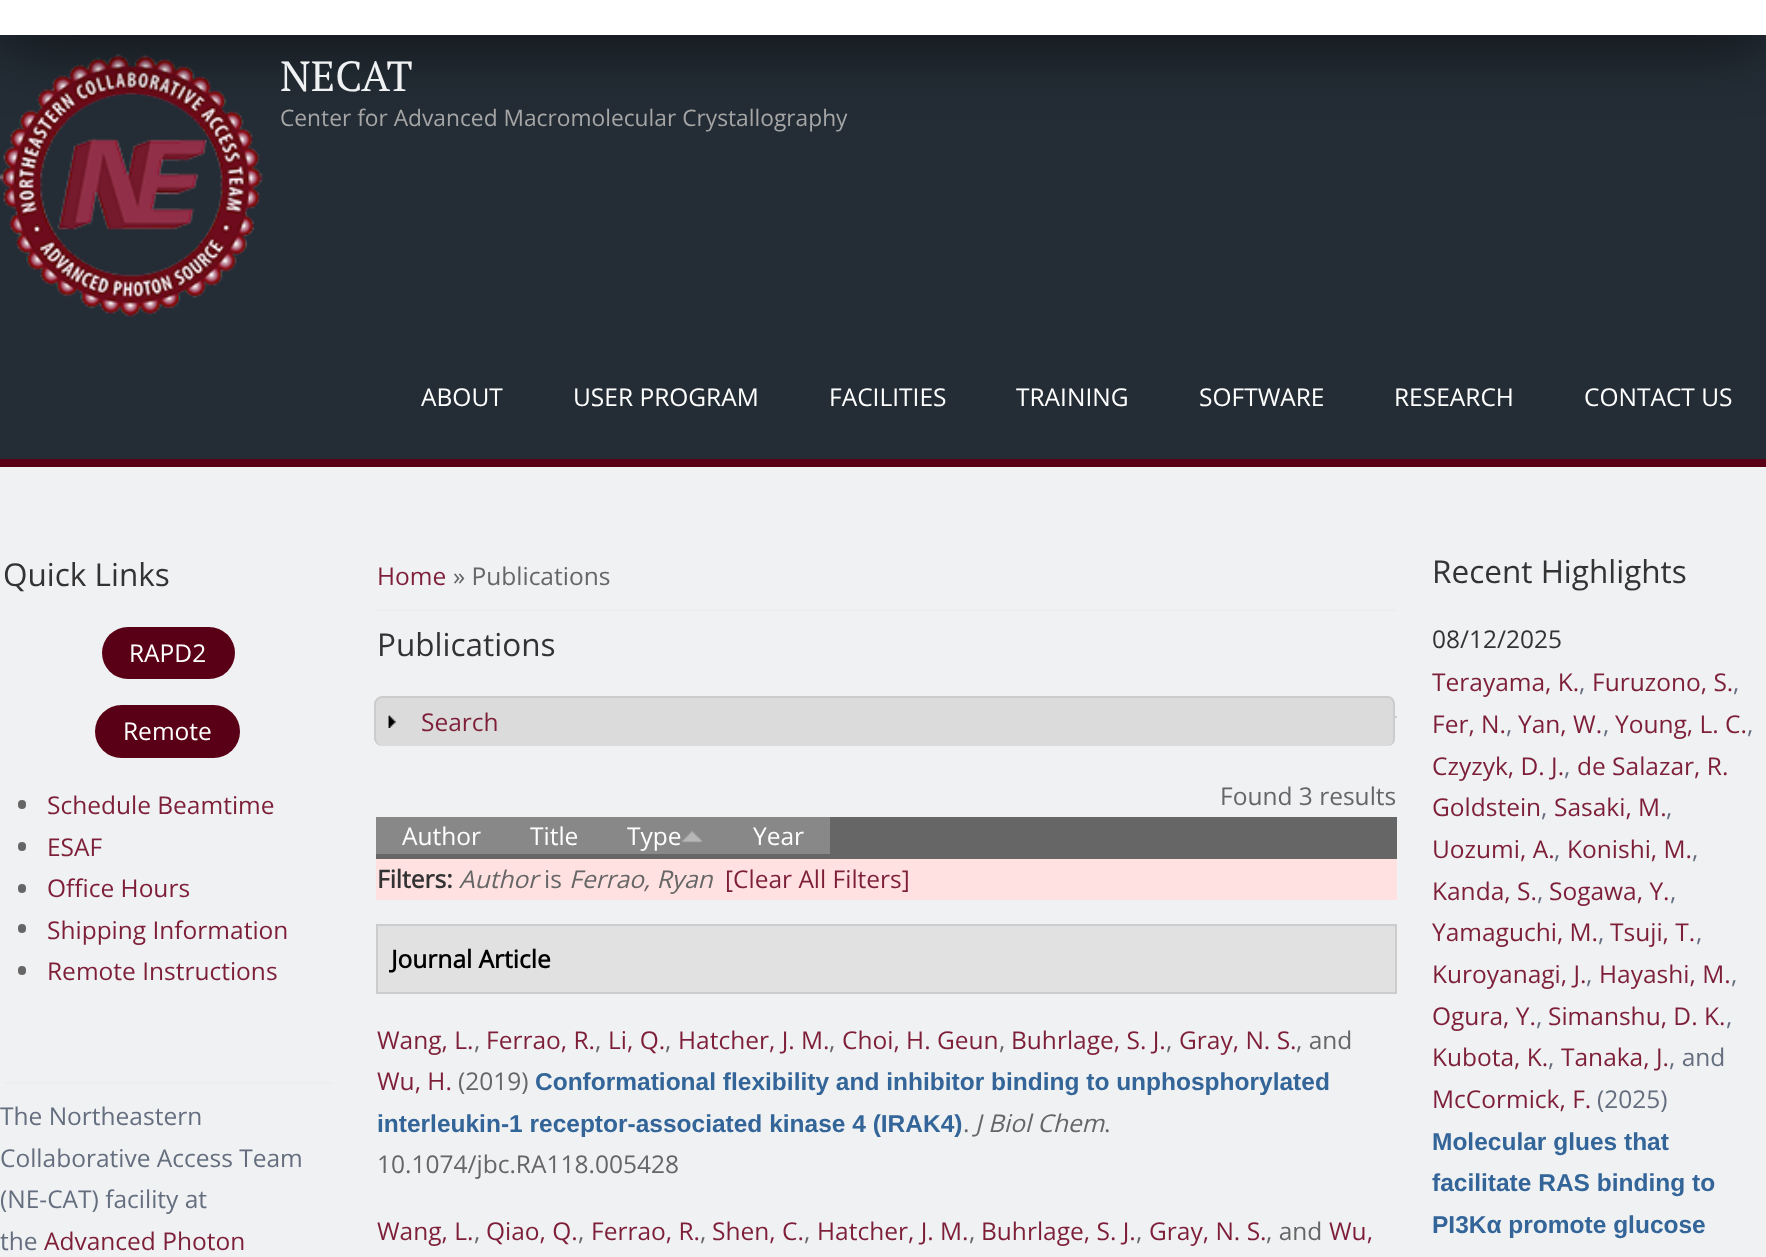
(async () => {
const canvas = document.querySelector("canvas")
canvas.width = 1766
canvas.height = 1257
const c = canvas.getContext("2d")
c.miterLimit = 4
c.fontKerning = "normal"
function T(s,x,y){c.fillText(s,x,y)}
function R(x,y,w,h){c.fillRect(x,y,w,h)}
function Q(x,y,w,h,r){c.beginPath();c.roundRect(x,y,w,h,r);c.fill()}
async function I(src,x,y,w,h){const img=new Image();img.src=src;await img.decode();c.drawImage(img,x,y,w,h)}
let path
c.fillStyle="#f0f1f3"
R(0,0,1766,1257)
c.fillStyle="#242d36"
R(0,35,1766,424)
await I("1.png",0,54,263,263)
c.fillStyle="#000"
c.filter="blur(35px)"
c.beginPath()
c.rect(0,0,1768,35)
c.fill()
c.filter="none"
c.fillStyle="#fff"
R(0,0,1766,35)
c.fillStyle="#5a0016"
R(0,459,1766,8)
c.font="42px PT Serif"
c.fillStyle="#f0f1f3"
T("NECAT",280,91)
c.font="22.75px Open Sans"
c.fillStyle="#a5a5a5"
T("Center for Advanced Macromolecular Crystallography",280,126)
c.font="24.5px Open Sans"
c.fillStyle="#fff"
T("ABOUT",421,406)
T("USER PROGRAM",573,406)
T("FACILITIES",829,406)
T("TRAINING",1016,406)
T("SOFTWARE",1199,406)
T("RESEARCH",1394,406)
T("CONTACT US",1584,406)
c.font="31.5px Open Sans"
c.fillStyle="#333"
T("Quick Links",3,586)
c.fillStyle="#5a0016"
Q(102,627,133,52,26)
c.font="24.5px Open Sans"
c.fillStyle="#fff"
T("RAPD2",129,662)
c.fillStyle="#5a0016"
Q(95,705,145,53,26.5)
c.fillStyle="#fff"
T("Remote",123,740)
c.fillStyle="#666"
Q(18,800,8,9,4)
c.fillStyle="#7d1f38"
T("Schedule Beamtime",47,814)
c.fillStyle="#666"
Q(18,842,8,9,4)
c.fillStyle="#7d1f38"
T("ESAF",47,856)
c.fillStyle="#666"
Q(18,884,8,9,4)
c.fillStyle="#7d1f38"
T("Office Hours",47,897)
c.fillStyle="#666"
Q(18,924,8,9,4)
c.fillStyle="#7d1f38"
T("Shipping Information",47,939)
c.fillStyle="#666"
Q(18,966,8,9,4)
c.fillStyle="#7d1f38"
T("Remote Instructions",47,980)
c.fillStyle="#eee"
R(4,1082,329,2)
c.fillStyle="#656e7f"
T("The Northeastern",0,1125)
T("Collaborative Access Team",0,1167)
T("(NE-CAT) facility at",0,1208)
T("the",0,1250)
c.fillStyle="#7d1f38"
T("Advanced Photon",44,1250)
c.fillStyle="#eee"
R(376,609,1021,2)
c.fillStyle="#7d1f38"
T("Home",377,585)
c.fillStyle="#666"
T("» Publications",453,585)
c.font="31.5px Open Sans"
c.fillStyle="#333"
T("Publications",377,656)
c.fillStyle="#ccc"
R(1395,716,2,2)
c.fillStyle="#dbdbdb"
Q(375,697,1020,49,7)
c.fillStyle="#ccc"
path = new Path2D("M382 696h1006c4 0 7 4 7 8v34c0 4-3 8-7 8h-1006c-4 0-8-4-8-8v-34c0-4 4-8 8-8zm0 2h1006c3 0 5 3 5 6v34c0 4-2 8-5 8h-1006c-3 0-6-4-6-8v-34c0-3 3-6 6-6z")
c.fill(path,"evenodd")
await I("2.png",388,715,8,13)
c.font="24.5px Open Sans"
c.fillStyle="#7d1f38"
T("Search",421,731)
c.fillStyle="#666"
T("Found 3 results",1220,805)
R(376,817,1021,42)
c.fillStyle="#888"
R(376,817,454,37)
c.fillStyle="#fff"
T("Author",402,845)
T("Title",530,845)
T("Type",627,845)
await I("3.png",682,831,21,12)
T("Year",753,845)
c.fillStyle="#ffe1e1"
R(376,859,1021,41)
c.font="bold 24.5px Open Sans"
c.fillStyle="#333"
T("Filters:",377,888)
c.font="italic 24.5px Open Sans"
c.fillStyle="#666"
T("Author",459,888)
c.font="24.5px Open Sans"
T("is",544,888)
c.font="italic 24.5px Open Sans"
T("Ferrao, Ryan",569,888)
c.font="24.5px Open Sans"
c.fillStyle="#7d1f38"
T("[Clear All Filters]",725,888)
c.fillStyle="#e1e1e1"
c.beginPath()
c.rect(377,925,1019,68)
c.fill()
c.strokeStyle="#ccc"
c.lineWidth=2
c.stroke()
c.font="bold 24.5px Open Sans"
c.fillStyle="#000"
T("Journal Article",391,968)
c.font="24.5px Open Sans"
c.fillStyle="#7d1f38"
T("Wang, L.",377,1049)
c.fillStyle="#666"
T(",",474,1049)
c.fillStyle="#7d1f38"
T("Ferrao, R.",486,1049)
c.fillStyle="#666"
T(",",595,1049)
c.fillStyle="#7d1f38"
T("Li, Q.",608,1049)
c.fillStyle="#666"
T(",",665,1049)
c.fillStyle="#7d1f38"
T("Hatcher, J. M.",678,1049)
c.fillStyle="#666"
T(",",829,1049)
c.fillStyle="#7d1f38"
T("Choi, H. Geun",842,1049)
c.fillStyle="#666"
T(",",999,1049)
c.fillStyle="#7d1f38"
T("Buhrlage, S. J.",1011,1049)
c.fillStyle="#666"
T(",",1166,1049)
c.fillStyle="#7d1f38"
T("Gray, N. S.",1179,1049)
c.fillStyle="#666"
T(", and",1296,1049)
c.fillStyle="#7d1f38"
T("Wu, H.",377,1090)
c.fillStyle="#666"
T("(2019)",458,1090)
c.font="bold 24.5px Liberation Sans"
c.fillStyle="#336599"
T("Conformational flexibility and inhibitor binding to unphosphorylated",535,1090)
T("interleukin-1 receptor-associated kinase 4 (IRAK4)",377,1132)
c.font="24.5px Open Sans"
c.fillStyle="#666"
T(".",963,1132)
c.font="italic 24.5px Open Sans"
T("J Biol Chem",975,1132)
c.font="24.5px Open Sans"
T(".",1104,1132)
T("10.1074/jbc.RA118.005428",377,1173)
c.fillStyle="#7d1f38"
T("Wang, L.",377,1240)
c.fillStyle="#666"
T(",",474,1240)
c.fillStyle="#7d1f38"
T("Qiao, Q.",486,1240)
c.fillStyle="#666"
T(",",578,1240)
c.fillStyle="#7d1f38"
T("Ferrao, R.",591,1240)
c.fillStyle="#666"
T(",",700,1240)
c.fillStyle="#7d1f38"
T("Shen, C.",712,1240)
c.fillStyle="#666"
T(",",804,1240)
c.fillStyle="#7d1f38"
T("Hatcher, J. M.",817,1240)
c.fillStyle="#666"
T(",",969,1240)
c.fillStyle="#7d1f38"
T("Buhrlage, S. J.",981,1240)
c.fillStyle="#666"
T(",",1136,1240)
c.fillStyle="#7d1f38"
T("Gray, N. S.",1149,1240)
c.fillStyle="#666"
T(", and",1266,1240)
c.fillStyle="#7d1f38"
T("Wu,",1329,1240)
c.font="31.5px Open Sans"
c.fillStyle="#333"
T("Recent Highlights",1432,583)
c.font="24.5px Open Sans"
T("08/12/2025",1432,648)
c.fillStyle="#7d1f38"
T("Terayama, K.",1432,691)
c.fillStyle="#656e7f"
T(",",1579,691)
c.fillStyle="#7d1f38"
T("Furuzono, S.",1592,691)
c.fillStyle="#656e7f"
T(",",1733,691)
c.fillStyle="#7d1f38"
T("Fer, N.",1432,733)
c.fillStyle="#656e7f"
T(",",1506,733)
c.fillStyle="#7d1f38"
T("Yan, W.",1518,733)
c.fillStyle="#656e7f"
T(",",1603,733)
c.fillStyle="#7d1f38"
T("Young, L. C.",1615,733)
c.fillStyle="#656e7f"
T(",",1747,733)
c.fillStyle="#7d1f38"
T("Czyzyk, D. J.",1432,775)
c.fillStyle="#656e7f"
T(",",1564,775)
c.fillStyle="#7d1f38"
T("de Salazar, R.",1577,775)
T("Goldstein",1432,816)
c.fillStyle="#656e7f"
T(",",1541,816)
c.fillStyle="#7d1f38"
T("Sasaki, M.",1554,816)
c.fillStyle="#656e7f"
T(",",1666,816)
c.fillStyle="#7d1f38"
T("Uozumi, A.",1432,858)
c.fillStyle="#656e7f"
T(",",1554,858)
c.fillStyle="#7d1f38"
T("Konishi, M.",1567,858)
c.fillStyle="#656e7f"
T(",",1692,858)
c.fillStyle="#7d1f38"
T("Kanda, S.",1432,900)
c.fillStyle="#656e7f"
T(",",1537,900)
c.fillStyle="#7d1f38"
T("Sogawa, Y.",1549,900)
c.fillStyle="#656e7f"
T(",",1670,900)
c.fillStyle="#7d1f38"
T("Yamaguchi, M.",1432,941)
c.fillStyle="#656e7f"
T(",",1598,941)
c.fillStyle="#7d1f38"
T("Tsuji, T.",1610,941)
c.fillStyle="#656e7f"
T(",",1696,941)
c.fillStyle="#7d1f38"
T("Kuroyanagi, J.",1432,983)
c.fillStyle="#656e7f"
T(",",1586,983)
c.fillStyle="#7d1f38"
T("Hayashi, M.",1599,983)
c.fillStyle="#656e7f"
T(",",1731,983)
c.fillStyle="#7d1f38"
T("Ogura, Y.",1432,1025)
c.fillStyle="#656e7f"
T(",",1536,1025)
c.fillStyle="#7d1f38"
T("Simanshu, D. K.",1548,1025)
c.fillStyle="#656e7f"
T(",",1726,1025)
c.fillStyle="#7d1f38"
T("Kubota, K.",1432,1066)
c.fillStyle="#656e7f"
T(",",1548,1066)
c.fillStyle="#7d1f38"
T("Tanaka, J.",1561,1066)
c.fillStyle="#656e7f"
T(", and",1669,1066)
c.fillStyle="#7d1f38"
T("McCormick, F.",1432,1108)
c.fillStyle="#656e7f"
T("(2025)",1597,1108)
c.font="bold 24.5px Liberation Sans"
c.fillStyle="#336599"
T("Molecular glues that",1432,1150)
T("facilitate RAS binding to",1432,1191)
T("PI3Kα promote glucose",1432,1233)
})()
